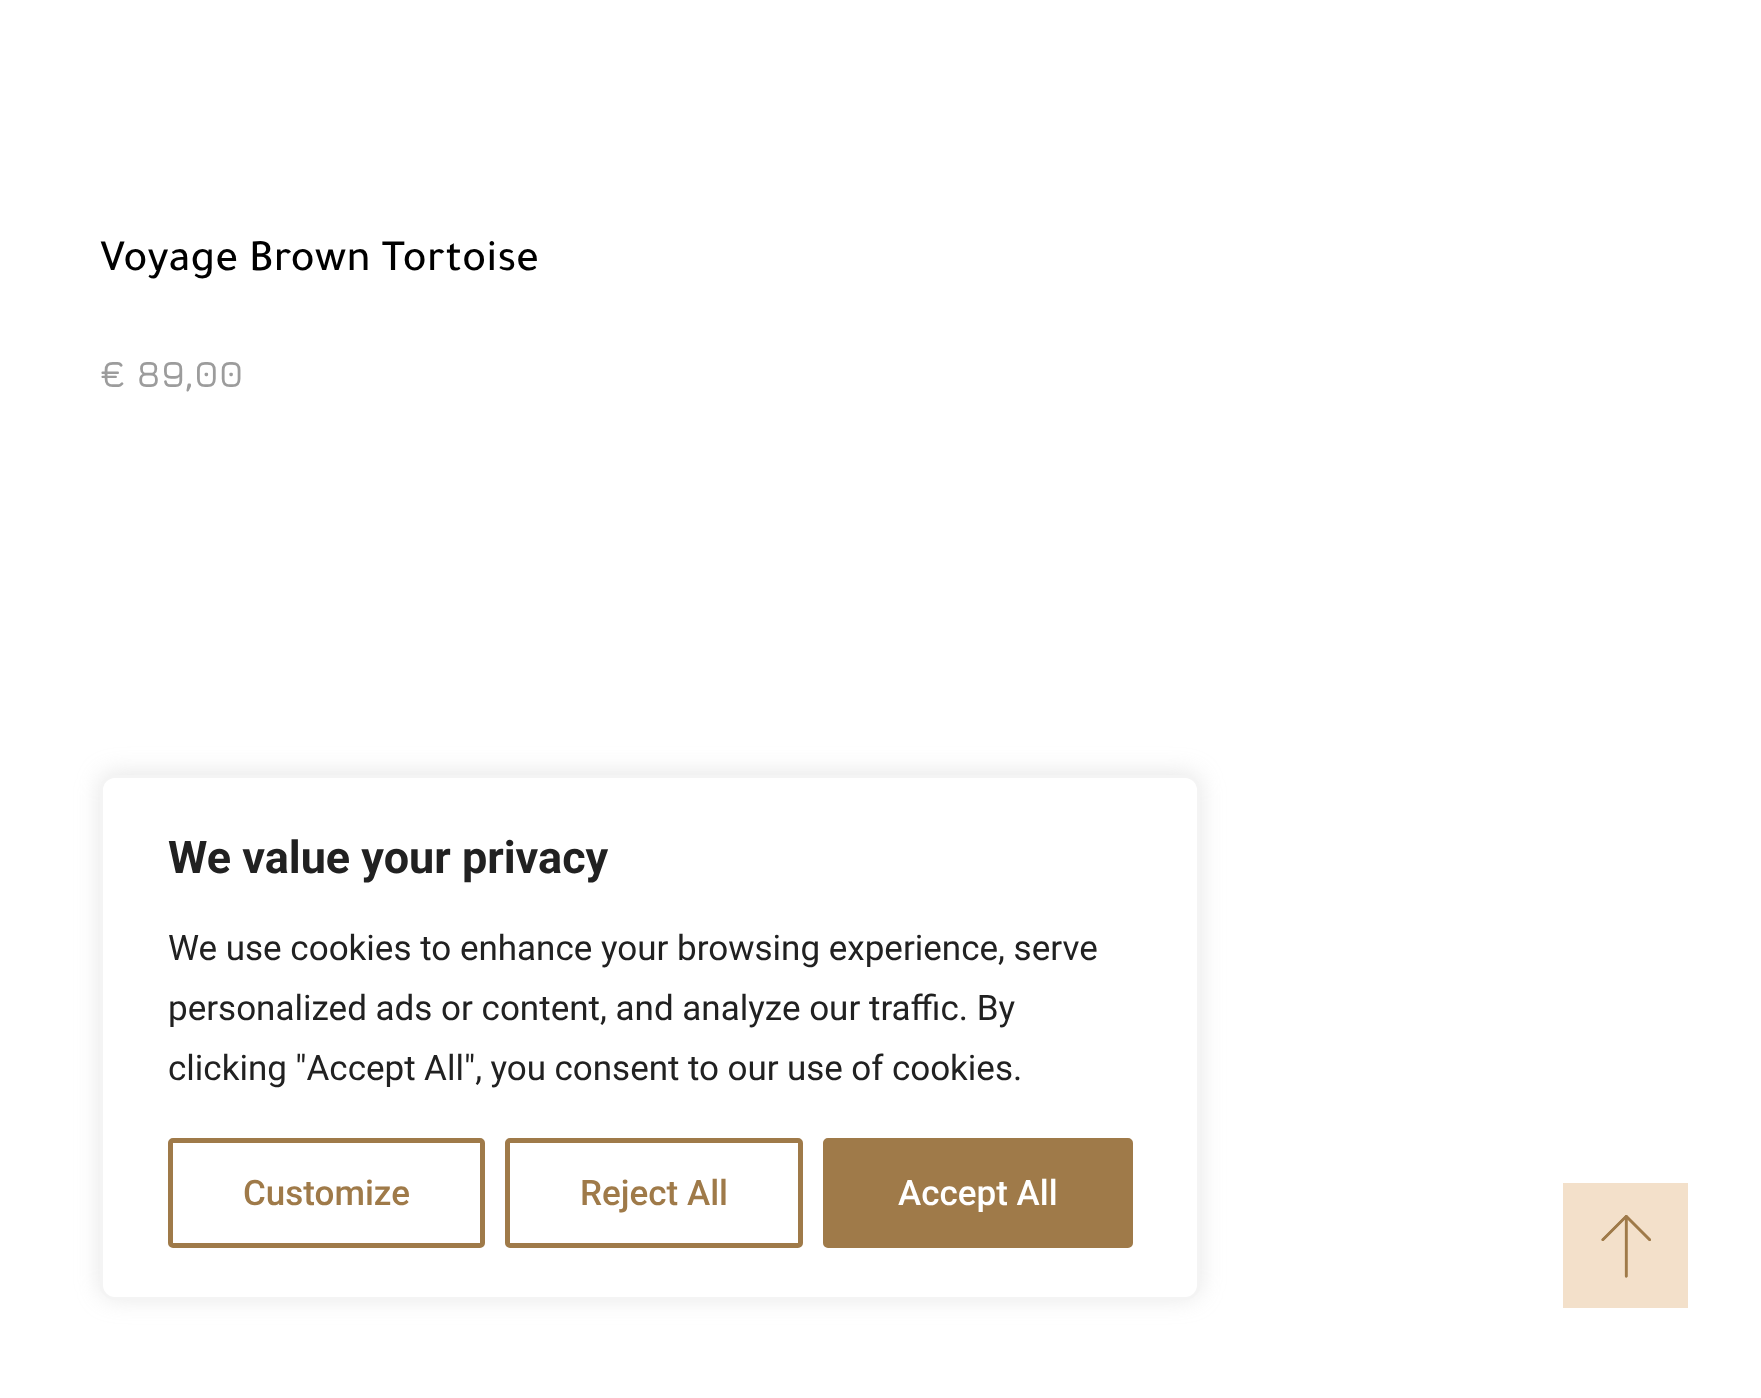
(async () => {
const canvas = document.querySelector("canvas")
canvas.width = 1761
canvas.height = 1398
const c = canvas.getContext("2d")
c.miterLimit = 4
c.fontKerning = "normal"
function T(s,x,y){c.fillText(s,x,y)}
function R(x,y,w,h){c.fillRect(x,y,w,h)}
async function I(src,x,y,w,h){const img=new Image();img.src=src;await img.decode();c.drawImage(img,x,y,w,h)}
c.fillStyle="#fff"
R(0,0,1761,1398)
c.font="500 45px Tajawal"
c.fillStyle="#000"
T("Voyage Brown Tortoise",100,270)
c.font="600 37.5px Jura"
c.fillStyle="#9c9c9c"
T("€ 89,00",100,387)
c.fillStyle="#acabab4d"
c.filter="blur(12.5px)"
c.beginPath()
c.roundRect(100,773,1100,525,15)
c.fill()
c.filter="none"
c.fillStyle="#fff"
c.beginPath()
c.roundRect(101.5,776.5,1097,522,13.5)
c.fill()
c.strokeStyle="#f4f4f4"
c.lineWidth=3
c.stroke()
c.font="bold 45px Roboto"
c.fillStyle="#212121"
T("We value your privacy",168,873)
c.font="35px Roboto"
T("We use cookies to enhance your browsing experience, serve",168,960)
T("personalized ads or content, and analyze our traffic. By",168,1020)
c.wordSpacing="-0.25px"
T("clicking \"Accept All\", you consent to our use of cookies.",168,1080)
c.beginPath()
c.roundRect(170.5,1140.5,312,105,2.5)
c.strokeStyle="#9f7a49"
c.lineWidth=5
c.stroke()
c.wordSpacing="0px"
c.font="500 35px Roboto"
c.fillStyle="#9f7a49"
T("Customize",243,1205)
c.beginPath()
c.roundRect(507.5,1140.5,293,105,2.5)
c.stroke()
T("Reject All",580,1205)
c.beginPath()
c.roundRect(825.5,1140.5,305,105,2.5)
c.fill()
c.stroke()
c.fillStyle="#fff"
T("Accept All",898,1205)
c.fillStyle="#f3e0ca"
R(1563,1183,125,125)
await I("1.png",1601,1215,50,63)
})()
